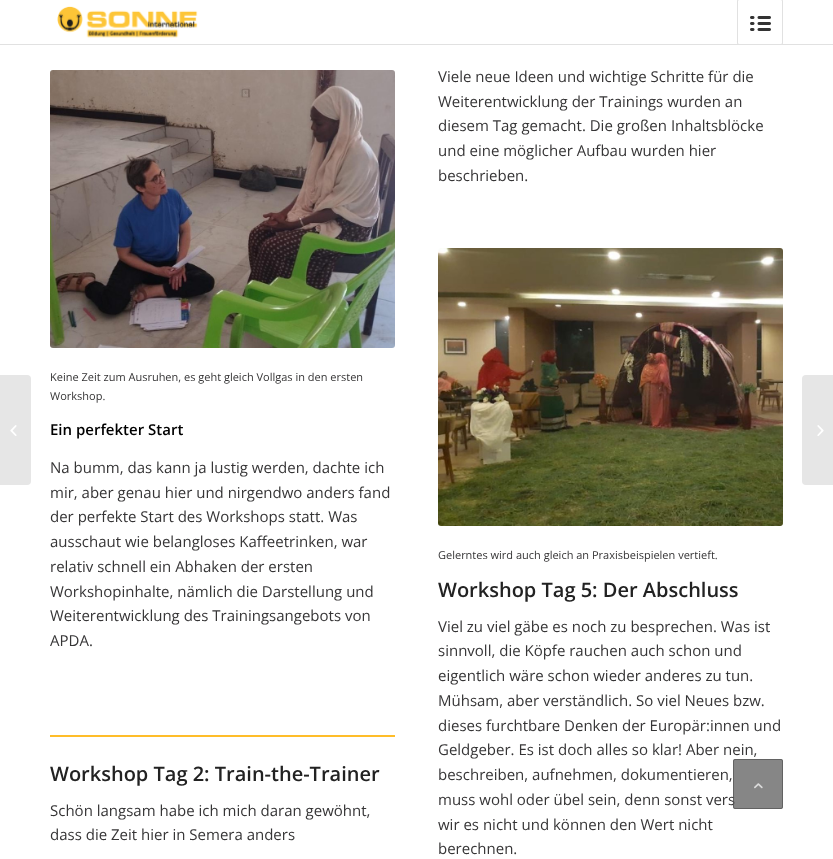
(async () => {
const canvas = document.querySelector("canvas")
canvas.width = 833
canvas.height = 859
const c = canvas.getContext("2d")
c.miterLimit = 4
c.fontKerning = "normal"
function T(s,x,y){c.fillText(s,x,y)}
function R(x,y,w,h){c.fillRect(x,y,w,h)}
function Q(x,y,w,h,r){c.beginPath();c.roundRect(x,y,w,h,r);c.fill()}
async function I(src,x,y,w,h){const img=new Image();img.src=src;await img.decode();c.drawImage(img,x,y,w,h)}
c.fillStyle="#fff"
R(0,0,833,859)
c.fillStyle="#e1e1e1"
R(0,44,833,1)
await I("1.png",57,6,141,32)
c.fillStyle="#fff"
c.beginPath()
c.roundRect(737.5,-.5,45,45,1.5)
c.fill()
c.strokeStyle="#e1e1e1"
c.stroke()
await I("2.png",750,16,21,15)
c.fillStyle="#e6e6e6"
c.beginPath()
c.roundRect(0,375,31,110,[0,4,4,0])
c.fill()
await I("3.png",10,425,7,11)
await I("4.png",50,70,345,278)
c.font="11px Open Sans"
c.fillStyle="#363536"
T("Keine Zeit zum Ausruhen, es geht gleich Vollgas in den ersten",50,381)
T("Workshop.",50,400)
c.font="600 15px Open Sans"
c.fillStyle="#000"
T("Ein perfekter Start",50,435)
c.font="15px Open Sans"
c.fillStyle="#363536"
T("Na bumm, das kann ja lustig werden, dachte ich",50,473)
T("mir, aber genau hier und nirgendwo anders fand",50,498)
T("der perfekte Start des Workshops statt. Was",50,522)
T("ausschaut wie belangloses Kaffeetrinken, war",50,547)
T("relativ schnell ein Abhaken der ersten",50,572)
T("Workshopinhalte, nämlich die Darstellung und",50,597)
T("Weiterentwicklung des Trainingsangebots von",50,621)
T("APDA.",50,646)
c.fillStyle="#ffbd29"
R(50,735,345,2)
c.font="600 20px Open Sans"
c.fillStyle="#222"
T("Workshop Tag 2: Train-the-Trainer",50,781)
c.font="15px Open Sans"
c.fillStyle="#363536"
T("Schön langsam habe ich mich daran gewöhnt,",50,816)
T("dass die Zeit hier in Semera anders",50,840)
T("Viele neue Ideen und wichtige Schritte für die",438,82)
T("Weiterentwicklung der Trainings wurden an",438,107)
T("diesem Tag gemacht. Die großen Inhaltsblöcke",438,131)
T("und eine möglicher Aufbau wurden hier",438,156)
T("beschrieben.",438,181)
await I("5.png",438,248,345,278)
c.font="11px Open Sans"
T("Gelerntes wird auch gleich an Praxisbeispielen vertieft.",438,559)
c.font="600 20px Open Sans"
c.fillStyle="#222"
T("Workshop Tag 5: Der Abschluss",438,597)
c.font="15px Open Sans"
c.fillStyle="#363536"
T("Viel zu viel gäbe es noch zu besprechen. Was ist",438,632)
T("sinnvoll, die Köpfe rauchen auch schon und",438,656)
T("eigentlich wäre schon wieder anderes zu tun.",438,681)
T("Mühsam, aber verständlich. So viel Neues bzw.",438,706)
T("dieses furchtbare Denken der Europär:innen und",438,731)
T("Geldgeber. Es ist doch alles so klar! Aber nein,",438,755)
T("beschreiben, aufnehmen, dokumentieren,",438,780)
T("muss wohl oder übel sein, denn sonst vers",438,805)
T("wir es nicht und können den Wert nicht",438,830)
T("berechnen.",438,854)
c.fillStyle="#e6e6e6"
c.beginPath()
c.roundRect(802,375,31,110,[4,0,0,4])
c.fill()
await I("6.png",817,425,7,11)
c.fillStyle="#525252b3"
Q(733,759,50,50,2)
c.beginPath()
c.roundRect(733.5,759.5,49,49,1.5)
c.strokeStyle="#525252b3"
c.stroke()
await I("7.png",754,783,9,6)
})()
